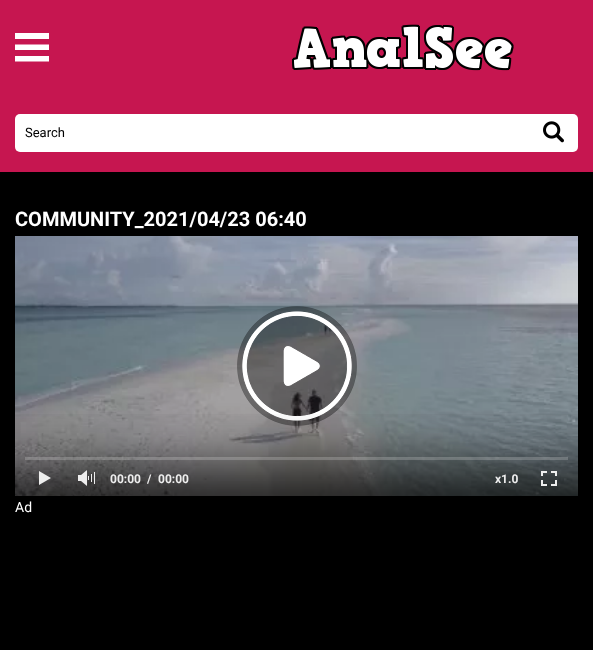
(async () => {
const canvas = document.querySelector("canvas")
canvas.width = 593
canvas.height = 650
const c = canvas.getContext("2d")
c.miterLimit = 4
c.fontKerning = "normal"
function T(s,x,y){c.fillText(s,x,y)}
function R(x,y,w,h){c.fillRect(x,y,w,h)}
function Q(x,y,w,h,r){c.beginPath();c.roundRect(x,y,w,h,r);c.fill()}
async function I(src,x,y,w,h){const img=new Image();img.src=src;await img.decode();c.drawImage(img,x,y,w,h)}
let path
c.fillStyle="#000"
R(0,0,593,650)
c.fillStyle="#c61650"
R(0,0,593,172)
c.fillStyle="#fff"
path = new Path2D("M15 33v6h34v-6zm0 17h34v-5.5h-34zm0 11.5h34v-5.5h-34z")
c.fill(path)
await I("1.png",292,24,222,47)
Q(15,114,563,38,5)
c.font="13px Roboto"
c.fillStyle="#000"
T("Search",25,137)
await I("2.png",543,121,21,22)
c.font="bold 20px Roboto"
c.fillStyle="#fff"
T("COMMUNITY_2021/04/23 06:40",15,226)
await I("3.png",15,236,563,260)
await I("4.png",237,306,120,120)
await I("5.png",15,414,563,82)
c.fillStyle="#ffffff33"
R(25,457,543,3)
c.fillStyle="#eee"
path = new Path2D("M39 471l12 7l-12 7z")
c.fill(path)
await I("6.png",78,470,17,16)
c.font="bold 12px Roboto"
T("00:00",110,483)
T("/",147,483)
T("00:00",158,483)
T("x1.0",495,483)
await I("7.png",541,471,16,15)
c.font="14px Roboto"
c.fillStyle="#fff"
T("Ad",15,512)
})()
